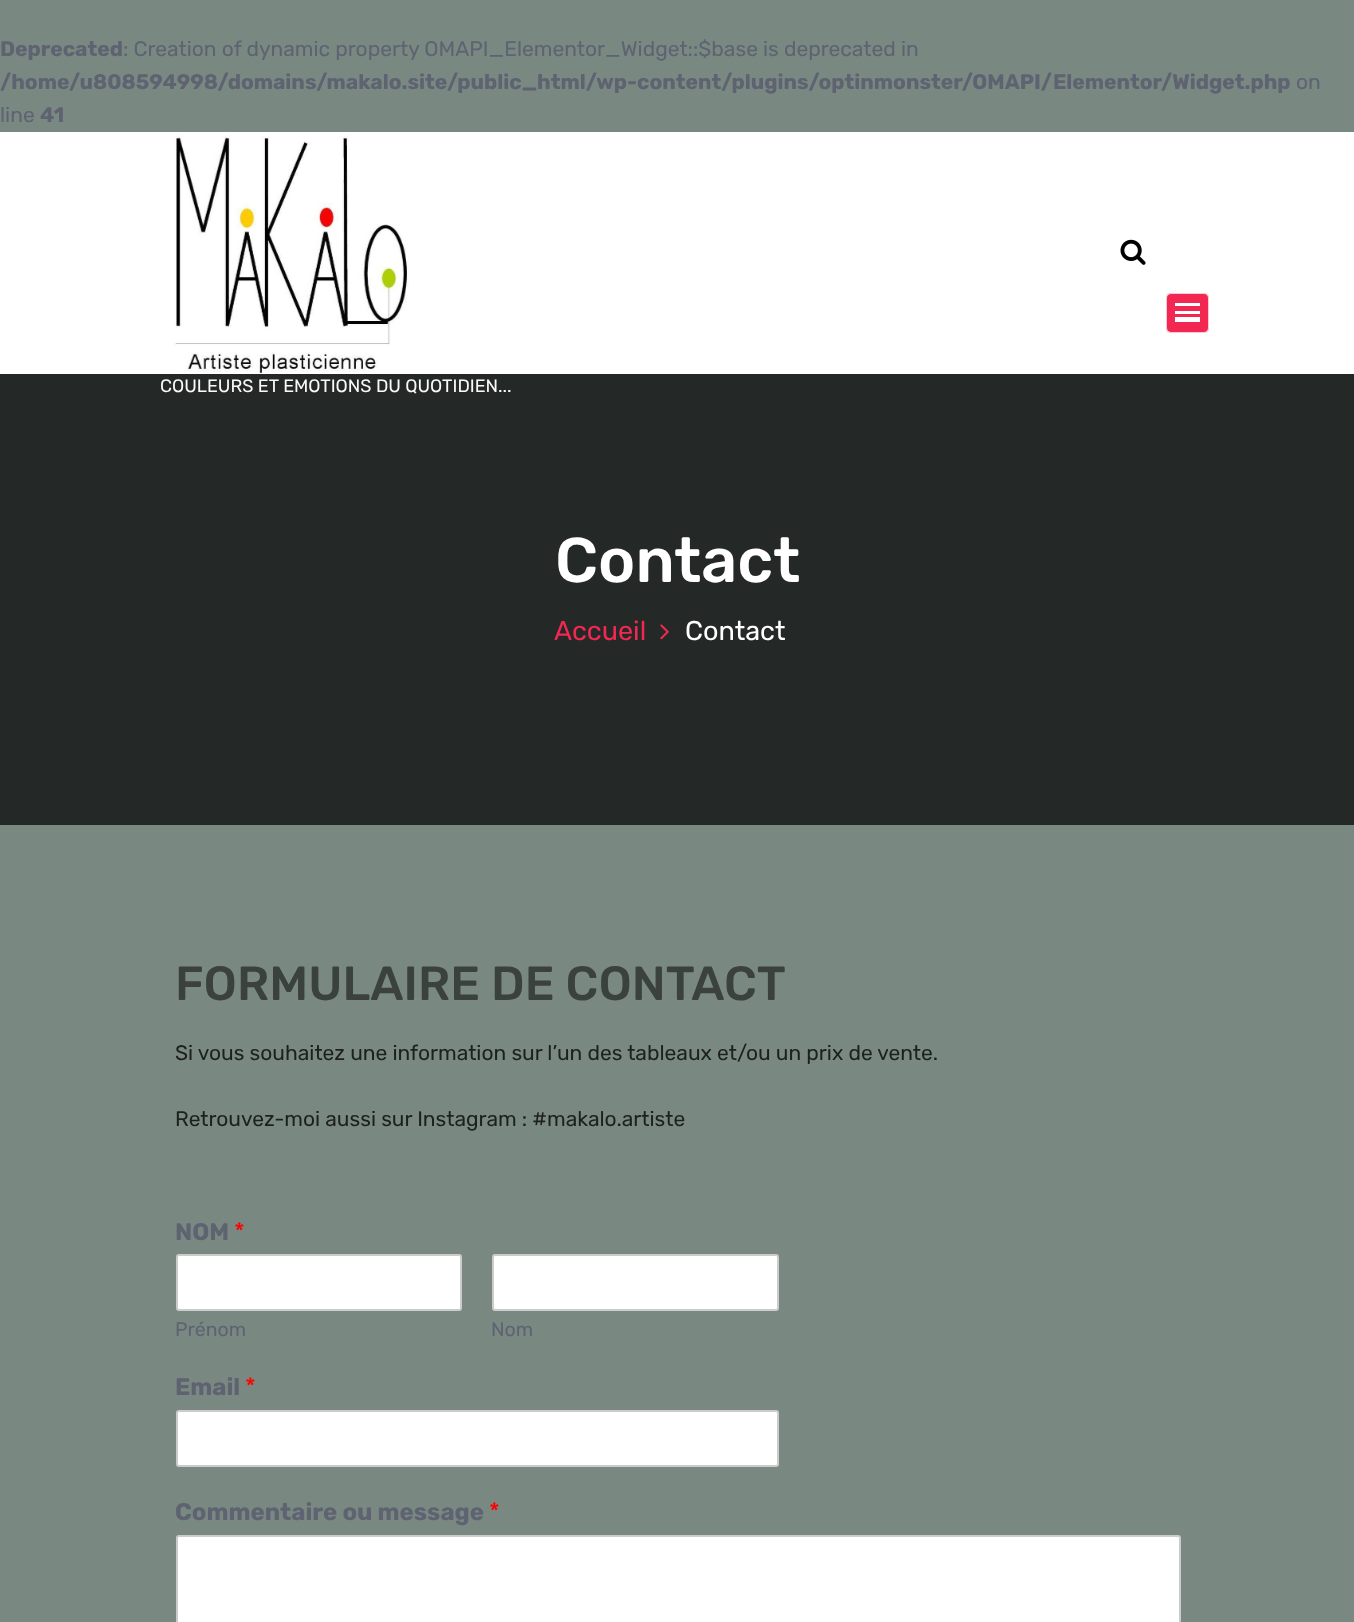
(async () => {
const canvas = document.querySelector("canvas")
canvas.width = 1354
canvas.height = 1622
const c = canvas.getContext("2d")
c.miterLimit = 4
c.fontKerning = "normal"
function T(s,x,y){c.fillText(s,x,y)}
function R(x,y,w,h){c.fillRect(x,y,w,h)}
function Q(x,y,w,h,r){c.beginPath();c.roundRect(x,y,w,h,r);c.fill()}
async function I(src,x,y,w,h){const img=new Image();img.src=src;await img.decode();c.drawImage(img,x,y,w,h)}
c.fillStyle="#798982"
R(0,0,1354,1622)
c.font="bold 21px Rubik"
c.fillStyle="#5e6271"
T("Deprecated",0,56)
c.font="21px Rubik"
T(": Creation of dynamic property OMAPI_Elementor_Widget::$base is deprecated in",123,56)
c.font="bold 21px Rubik"
T("/home/u808594998/domains/makalo.site/public_html/wp-content/plugins/optinmonster/OMAPI/Elementor/Widget.php",0,89)
c.font="21px Rubik"
T("on",1296,89)
T("line",0,122)
c.font="bold 21px Rubik"
T("41",40,122)
c.fillStyle="#fff"
R(0,132,1354,242)
c.fillStyle="#f22853"
c.beginPath()
c.roundRect(1166.5,293.5,42,39,4.5)
c.fill()
c.strokeStyle="#fff"
c.stroke()
c.fillStyle="#f2285380"
Q(1166,293,43,40,5)
c.beginPath()
c.roundRect(1166.5,293.5,42,39,4.5)
c.strokeStyle="#ffffff80"
c.stroke()
c.fillStyle="#fff"
R(1175,303,25,3)
R(1175,311,25,3)
R(1175,317,25,5)
await I("1.png",1120,239,26,26)
await I("2.png",173,135,236,239)
c.fillStyle="#242927"
R(0,374,1354,451)
c.font="18px Rubik"
c.fillStyle="#f9f9f9"
T("COULEURS ET EMOTIONS DU QUOTIDIEN...",160,392)
c.font="500 63px Rubik"
c.fillStyle="#fff"
T("Contact",555,582)
c.font="27px Rubik"
c.fillStyle="#f22853"
T("Accueil",554,640)
await I("3.png",660,624,9,16)
c.fillStyle="#fff"
T("Contact",685,640)
c.font="500 48px Rubik"
c.fillStyle="#3b423e"
T("FORMULAIRE DE CONTACT",175,1000)
c.font="21px Rubik"
c.fillStyle="#1d201f"
T("Si vous souhaitez une information sur l’un des tableaux et/ou un prix de vente.",175,1060)
T("Retrouvez-moi aussi sur Instagram : #makalo.artiste",175,1126)
c.font="bold 24px Rubik"
c.fillStyle="#5e6271"
T("NOM",175,1240)
c.font="24px Rubik"
c.fillStyle="#f00"
T("*",234,1240)
c.fillStyle="#fff"
c.beginPath()
c.roundRect(177,1255,284,55,2)
c.fill()
c.strokeStyle="#ccc"
c.lineWidth=2
c.stroke()
c.font="19.5px Rubik"
c.fillStyle="#5e6271"
T("Prénom",175,1336)
c.fillStyle="#fff"
c.beginPath()
c.roundRect(493,1255,285,55,2)
c.fill()
c.stroke()
c.fillStyle="#5e6271"
T("Nom",491,1336)
c.font="bold 24px Rubik"
T("Email",175,1395)
c.font="24px Rubik"
c.fillStyle="#f00"
T("*",245,1395)
c.fillStyle="#fff"
c.beginPath()
c.roundRect(177,1411,601,55,2)
c.fill()
c.stroke()
c.font="bold 24px Rubik"
c.fillStyle="#5e6271"
T("Commentaire ou message",175,1520)
c.font="24px Rubik"
c.fillStyle="#f00"
T("*",489,1520)
c.fillStyle="#fff"
c.beginPath()
c.roundRect(177,1536,1003,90,2)
c.fill()
c.stroke()
})()
